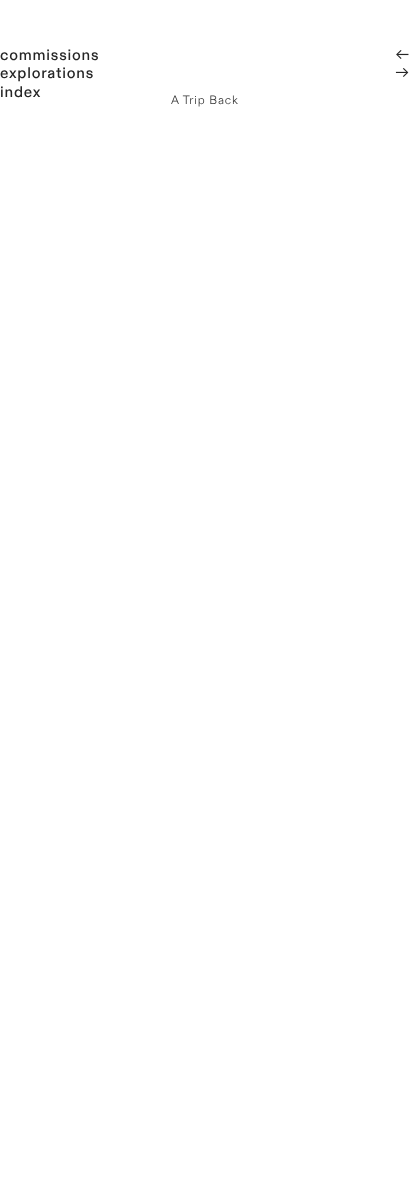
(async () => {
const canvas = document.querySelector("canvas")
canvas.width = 411
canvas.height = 1199
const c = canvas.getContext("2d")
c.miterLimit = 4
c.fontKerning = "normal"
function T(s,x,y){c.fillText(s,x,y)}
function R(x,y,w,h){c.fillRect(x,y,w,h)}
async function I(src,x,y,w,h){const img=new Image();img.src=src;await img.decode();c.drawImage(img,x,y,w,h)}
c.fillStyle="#fff"
R(0,0,411,1199)
c.letterSpacing="0.8px"
c.font="500 15.5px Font"
c.fillStyle="#262626"
T("commissions",0,60)
T("explorations",0,78)
T("index",0,97)
await I("1.png",396,50,13,9)
await I("2.png",395,68,14,9)
c.font="300 12px Font"
c.fillStyle="#303030"
T("A Trip Back",171,104)
})()
